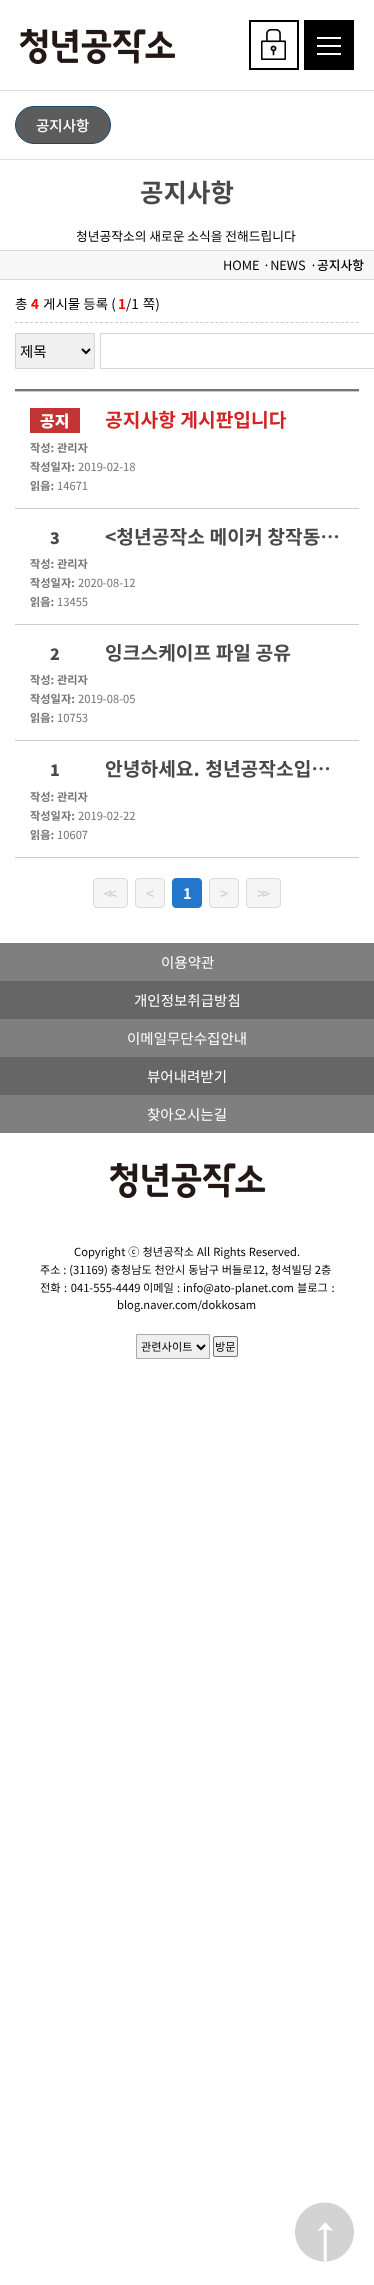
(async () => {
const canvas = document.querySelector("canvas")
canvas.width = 374
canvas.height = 2285
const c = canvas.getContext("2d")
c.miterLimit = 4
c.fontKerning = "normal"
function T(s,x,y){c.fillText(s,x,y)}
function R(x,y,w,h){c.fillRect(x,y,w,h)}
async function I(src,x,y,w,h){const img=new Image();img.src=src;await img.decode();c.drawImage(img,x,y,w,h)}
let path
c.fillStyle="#fff"
R(0,0,374,2285)
await I("1.png",20,29,155,35)
await I("2.png",249,20,50,50)
c.fillStyle="#000"
R(304,20,50,50)
c.fillStyle="#fff"
R(317,37,24,2)
R(317,45,24,2)
R(317,53,24,2)
c.fillStyle="#dfdfdf"
R(0,90,374,1)
c.fillStyle="#5c5c5c"
c.beginPath()
c.roundRect(15.5,106.5,95,37,18.5)
c.fill()
c.strokeStyle="#184a73"
c.stroke()
c.font="500 14.5px Noto Sans KR"
c.fillStyle="#fff"
T("공지사항",36,131)
c.fillStyle="#dfdfdf"
R(0,159,374,1)
c.font="bold 25.5px Noto Sans KR"
c.fillStyle="#484848"
T("공지사항",140,202)
c.font="12.75px Noto Sans KR"
c.fillStyle="#000"
T("청년공작소의 새로운 소식을 전해드립니다",76,241)
c.fillStyle="#f7f7f7"
R(0,251,374,28)
c.fillStyle="#dadada"
R(0,250,374,1)
R(0,279,374,1)
c.fillStyle="#000"
T("HOME",223,270)
T("·NEWS",263,270)
T("·",310,270)
c.font="500 12.75px Noto Sans KR"
T("공지사항",317,270)
path = new Path2D("M15 322.5h344")
c.strokeStyle="#ccc"
c.setLineDash([3,2.01])
c.stroke(path)
c.font="13.5px Noto Sans KR"
T("총",15,309)
c.font="bold 13.5px Noto Sans KR"
c.fillStyle="#f00"
T("4",31,309)
c.font="13.5px Noto Sans KR"
c.fillStyle="#000"
T("게시물 등록 (",43,309)
c.font="bold 13.5px Noto Sans KR"
c.fillStyle="#f00"
T("1",118,309)
c.wordSpacing="1px"
c.font="13.5px Noto Sans KR"
c.fillStyle="#000"
T("/1 쪽)",126,309)
c.fillStyle="#efefef"
c.beginPath()
c.rect(15.5,333.5,79,35)
c.fill()
c.strokeStyle="#d5d5d5"
c.setLineDash([])
c.stroke()
path = new Path2D("M82 349l4 4l4-4")
c.strokeStyle="#000"
c.lineWidth=2
c.stroke(path)
c.wordSpacing="0px"
c.font="14.5px Noto Sans KR"
c.fillStyle="#000"
T("제목",20,357)
c.strokeStyle="#d5d5d5"
c.lineWidth=1
c.strokeRect(100.5,333.5,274,35)
c.fillStyle="#747474"
R(15,389,344,2)
c.fillStyle="#ccc"
R(15,391,344,1)
R(15,508,344,1)
c.fillStyle="#c33535"
R(30,408,50,25)
c.font="900 16px Noto Sans KR"
c.fillStyle="#fff"
T("공지",40,427)
c.font="bold 19.25px Noto Sans KR"
c.fillStyle="#d52323"
T("공지사항 게시판입니다",105,427)
c.font="bold 11.2px Noto Sans KR"
c.fillStyle="#757575"
T("작성:",30,452)
T("관리자",57,452)
T("작성일자:",30,471)
c.font="11.2px Noto Sans KR"
T("2019-02-18",78,471)
c.font="bold 11.2px Noto Sans KR"
T("읽음:",30,490)
c.font="11.2px Noto Sans KR"
T("14671",57,490)
c.fillStyle="#ccc"
R(15,624,344,1)
c.font="900 16px Noto Sans KR"
c.fillStyle="#484848"
T("3",50,544)
c.wordSpacing="0.25px"
c.font="bold 19.25px Noto Sans KR"
T("<청년공작소 메이커 창작동…",105,544)
c.wordSpacing="0px"
c.font="bold 11.2px Noto Sans KR"
c.fillStyle="#757575"
T("작성:",30,568)
T("관리자",57,568)
T("작성일자:",30,587)
c.font="11.2px Noto Sans KR"
T("2020-08-12",78,587)
c.font="bold 11.2px Noto Sans KR"
T("읽음:",30,606)
c.font="11.2px Noto Sans KR"
T("13455",57,606)
c.fillStyle="#ccc"
R(15,740,344,1)
c.font="900 16px Noto Sans KR"
c.fillStyle="#484848"
T("2",50,660)
c.font="bold 19.25px Noto Sans KR"
T("잉크스케이프 파일 공유",105,660)
c.font="bold 11.2px Noto Sans KR"
c.fillStyle="#757575"
T("작성:",30,684)
T("관리자",57,684)
T("작성일자:",30,703)
c.font="11.2px Noto Sans KR"
T("2019-08-05",78,703)
c.font="bold 11.2px Noto Sans KR"
T("읽음:",30,722)
c.font="11.2px Noto Sans KR"
T("10753",57,722)
c.fillStyle="#ccc"
R(15,857,344,1)
c.font="900 16px Noto Sans KR"
c.fillStyle="#484848"
T("1",50,776)
c.wordSpacing="1px"
c.font="bold 19.25px Noto Sans KR"
T("안녕하세요. 청년공작소입…",105,776)
c.wordSpacing="0px"
c.font="bold 11.2px Noto Sans KR"
c.fillStyle="#757575"
T("작성:",30,801)
T("관리자",57,801)
T("작성일자:",30,820)
c.font="11.2px Noto Sans KR"
T("2019-02-22",78,820)
c.font="bold 11.2px Noto Sans KR"
T("읽음:",30,839)
c.font="11.2px Noto Sans KR"
T("10607",57,839)
c.fillStyle="#f5f5f5"
c.beginPath()
c.roundRect(93.5,878.5,34,29,3.5)
c.fill()
c.strokeStyle="#dadada"
c.stroke()
c.letterSpacing="-3px"
c.font="14.5px Noto Sans KR"
c.fillStyle="#ccc"
T("<",104,899)
c.letterSpacing="0px"
T("<",109,899)
c.fillStyle="#f5f5f5"
c.beginPath()
c.roundRect(135.5,878.5,29,29,3.5)
c.fill()
c.stroke()
c.fillStyle="#ccc"
T("<",146,899)
c.fillStyle="#27c"
c.beginPath()
c.roundRect(172.5,878.5,29,29,3.5)
c.fill()
c.strokeStyle="#27c"
c.stroke()
c.font="bold 14.5px Noto Sans KR"
c.fillStyle="#fff"
T("1",183,899)
c.fillStyle="#f5f5f5"
c.beginPath()
c.roundRect(209.5,878.5,29,29,3.5)
c.fill()
c.strokeStyle="#dadada"
c.stroke()
c.font="14.5px Noto Sans KR"
c.fillStyle="#ccc"
T(">",220,899)
c.fillStyle="#f5f5f5"
c.beginPath()
c.roundRect(246.5,878.5,34,29,3.5)
c.fill()
c.stroke()
c.letterSpacing="-3px"
c.fillStyle="#ccc"
T(">",257,899)
c.letterSpacing="0px"
T(">",262,899)
c.fillStyle="#7f7f7f"
R(0,943,374,190)
c.fillStyle="#fff"
T("이용약관",161,968)
c.fillStyle="#666"
R(0,981,374,38)
c.fillStyle="#fff"
T("개인정보취급방침",134,1006)
T("이메일무단수집안내",127,1044)
c.fillStyle="#666"
R(0,1057,374,38)
c.fillStyle="#fff"
T("뷰어내려받기",147,1082)
T("찾아오시는길",147,1120)
await I("1.png",110,1163,155,35)
c.wordSpacing="0.5px"
c.font="11.2px Noto Sans KR"
c.fillStyle="#000"
T("Copyright ⓒ 청년공작소 All Rights Reserved.",74,1256)
c.wordSpacing="0.25px"
T("주소 : (31169) 충청남도 천안시 동남구 버들로12, 청석빌딩 2층",40,1274)
c.wordSpacing="1px"
T("전화 : 041-555-4449",40,1292)
c.wordSpacing="0.5px"
T("이메일 : info@ato-planet.com",143,1292)
c.wordSpacing="1px"
T("블로그 :",297,1292)
c.wordSpacing="0px"
T("blog.naver.com/dokkosam",117,1309)
c.fillStyle="#efefef"
c.beginPath()
c.rect(136.5,1334.5,73,24)
c.fill()
c.strokeStyle="#aaa"
c.stroke()
path = new Path2D("M197 1345l4 4l4-4")
c.strokeStyle="#000"
c.lineWidth=2
c.stroke(path)
c.fillStyle="#000"
T("관련사이트",141,1351)
c.fillStyle="#efefef"
c.beginPath()
c.roundRect(213.5,1336.5,24,20,1.5)
c.fill()
c.strokeStyle="#767676"
c.lineWidth=1
c.stroke()
c.fillStyle="#000"
T("방문",215,1351)
await I("3.png",295,2202,59,60)
})()
